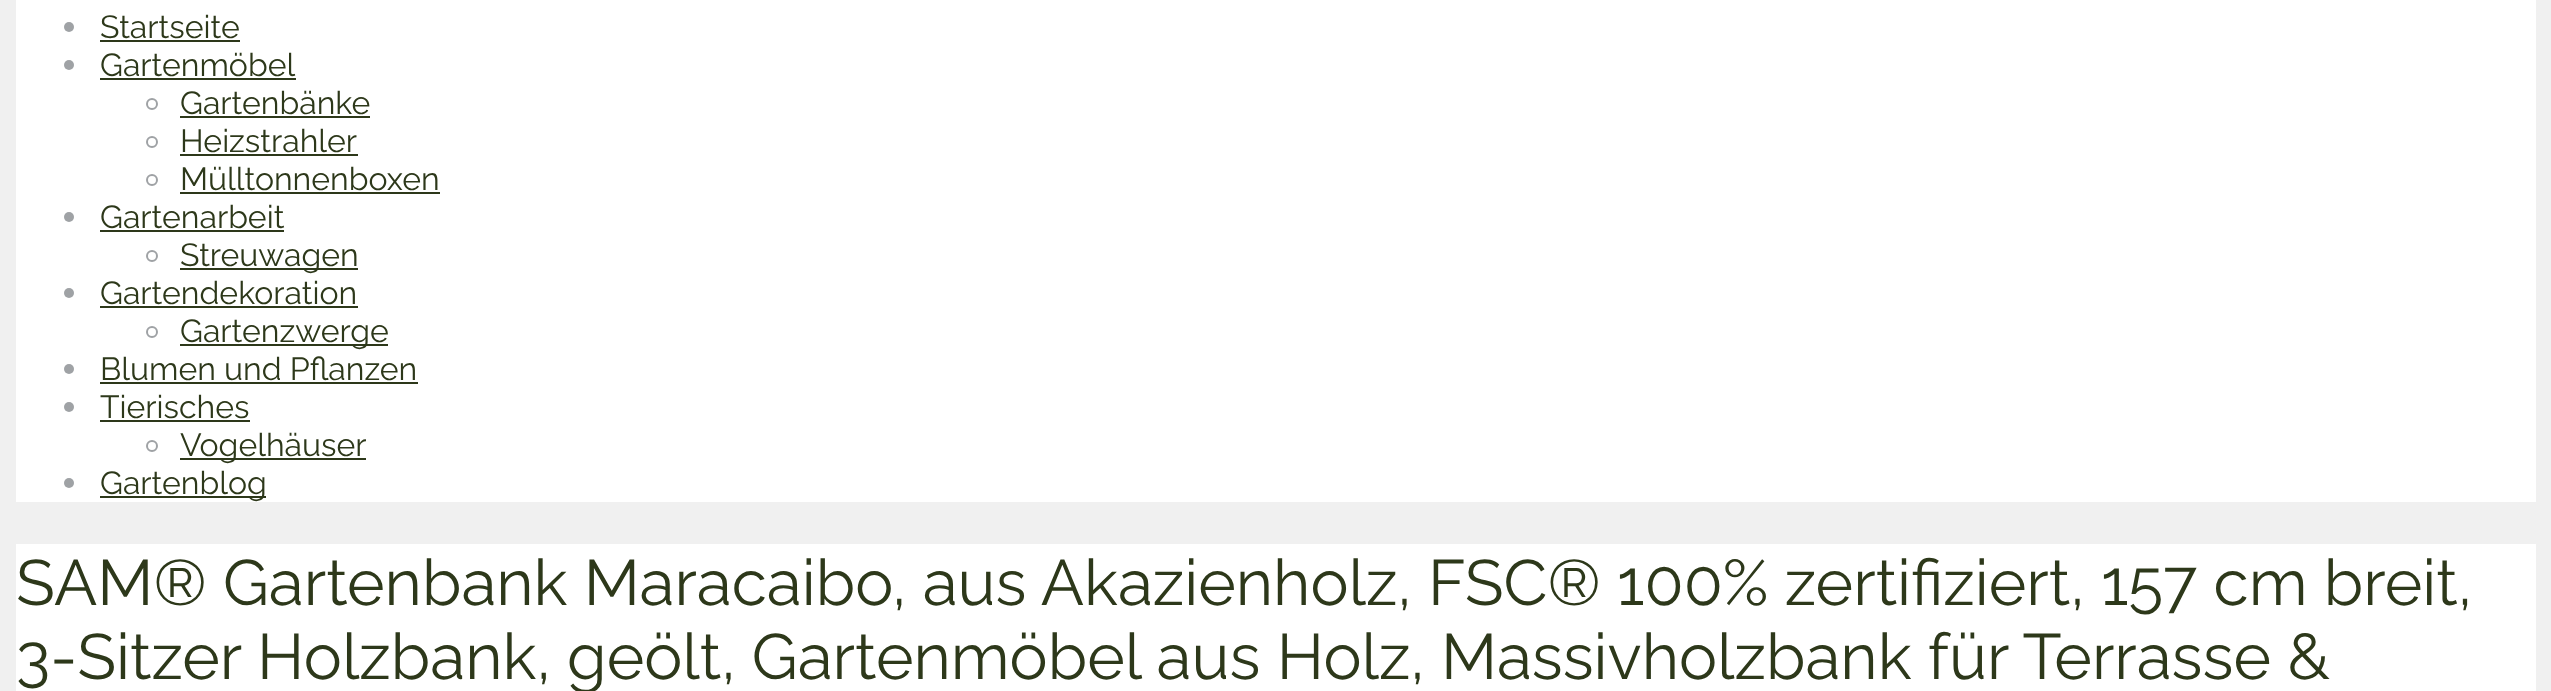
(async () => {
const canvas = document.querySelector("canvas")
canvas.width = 2551
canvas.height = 691
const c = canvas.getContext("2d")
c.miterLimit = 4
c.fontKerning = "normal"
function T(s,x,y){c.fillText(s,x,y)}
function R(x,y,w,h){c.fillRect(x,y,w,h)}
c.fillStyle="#f0f0f0"
R(0,0,2551,691)
c.fillStyle="#fff"
R(16,0,2520,502)
c.fillStyle="#9fa2a5"
c.beginPath()
c.arc(69,27,5,0,7)
c.fill()
c.font="32px Raleway"
c.fillStyle="#2d381a"
T("Startseite",100,38)
R(100,40,140,2)
c.fillStyle="#9fa2a5"
c.beginPath()
c.arc(69,65,5,0,7)
c.fill()
c.fillStyle="#2d381a"
T("Gartenmöbel",100,76)
R(100,78,196,2)
c.beginPath()
c.arc(152,104,5,0,7)
c.strokeStyle="#9fa2a5"
c.lineWidth=2
c.stroke()
T("Gartenbänke",180,114)
R(180,116,190,2)
c.beginPath()
c.arc(152,142,5,0,7)
c.stroke()
T("Heizstrahler",180,152)
R(180,154,178,2)
c.beginPath()
c.arc(152,180,5,0,7)
c.stroke()
T("Mülltonnenboxen",180,190)
R(180,192,260,2)
c.fillStyle="#9fa2a5"
c.beginPath()
c.arc(69,217,5,0,7)
c.fill()
c.fillStyle="#2d381a"
T("Gartenarbeit",100,228)
R(100,230,184,2)
c.beginPath()
c.arc(152,256,5,0,7)
c.stroke()
R(180,268,178,2)
T("Streuwagen",180,266)
c.fillStyle="#9fa2a5"
c.beginPath()
c.arc(69,293,5,0,7)
c.fill()
c.fillStyle="#2d381a"
T("Gartendekoration",100,304)
R(100,306,258,2)
c.beginPath()
c.arc(152,332,5,0,7)
c.stroke()
R(180,344,208,2)
T("Gartenzwerge",180,342)
c.fillStyle="#9fa2a5"
c.beginPath()
c.arc(69,369,5,0,7)
c.fill()
c.fillStyle="#2d381a"
T("Blumen und Pflanzen",100,380)
R(100,382,318,2)
c.fillStyle="#9fa2a5"
c.beginPath()
c.arc(69,407,5,0,7)
c.fill()
c.fillStyle="#2d381a"
T("Tierisches",100,418)
R(100,420,150,2)
c.beginPath()
c.arc(152,446,5,0,7)
c.stroke()
R(180,458,186,2)
T("Vogelhäuser",180,456)
c.fillStyle="#9fa2a5"
c.beginPath()
c.arc(69,483,5,0,7)
c.fill()
c.fillStyle="#2d381a"
R(100,496,166,2)
T("Gartenblog",100,494)
c.fillStyle="#fff"
R(16,544,2520,147)
c.font="64px Raleway"
c.fillStyle="#2d381a"
T("SAM® Gartenbank Maracaibo, aus Akazienholz, FSC® 100% zertifiziert, 157 cm breit,",16,605)
T("3-Sitzer Holzbank, geölt, Gartenmöbel aus Holz, Massivholzbank für Terrasse &",16,679)
})()
